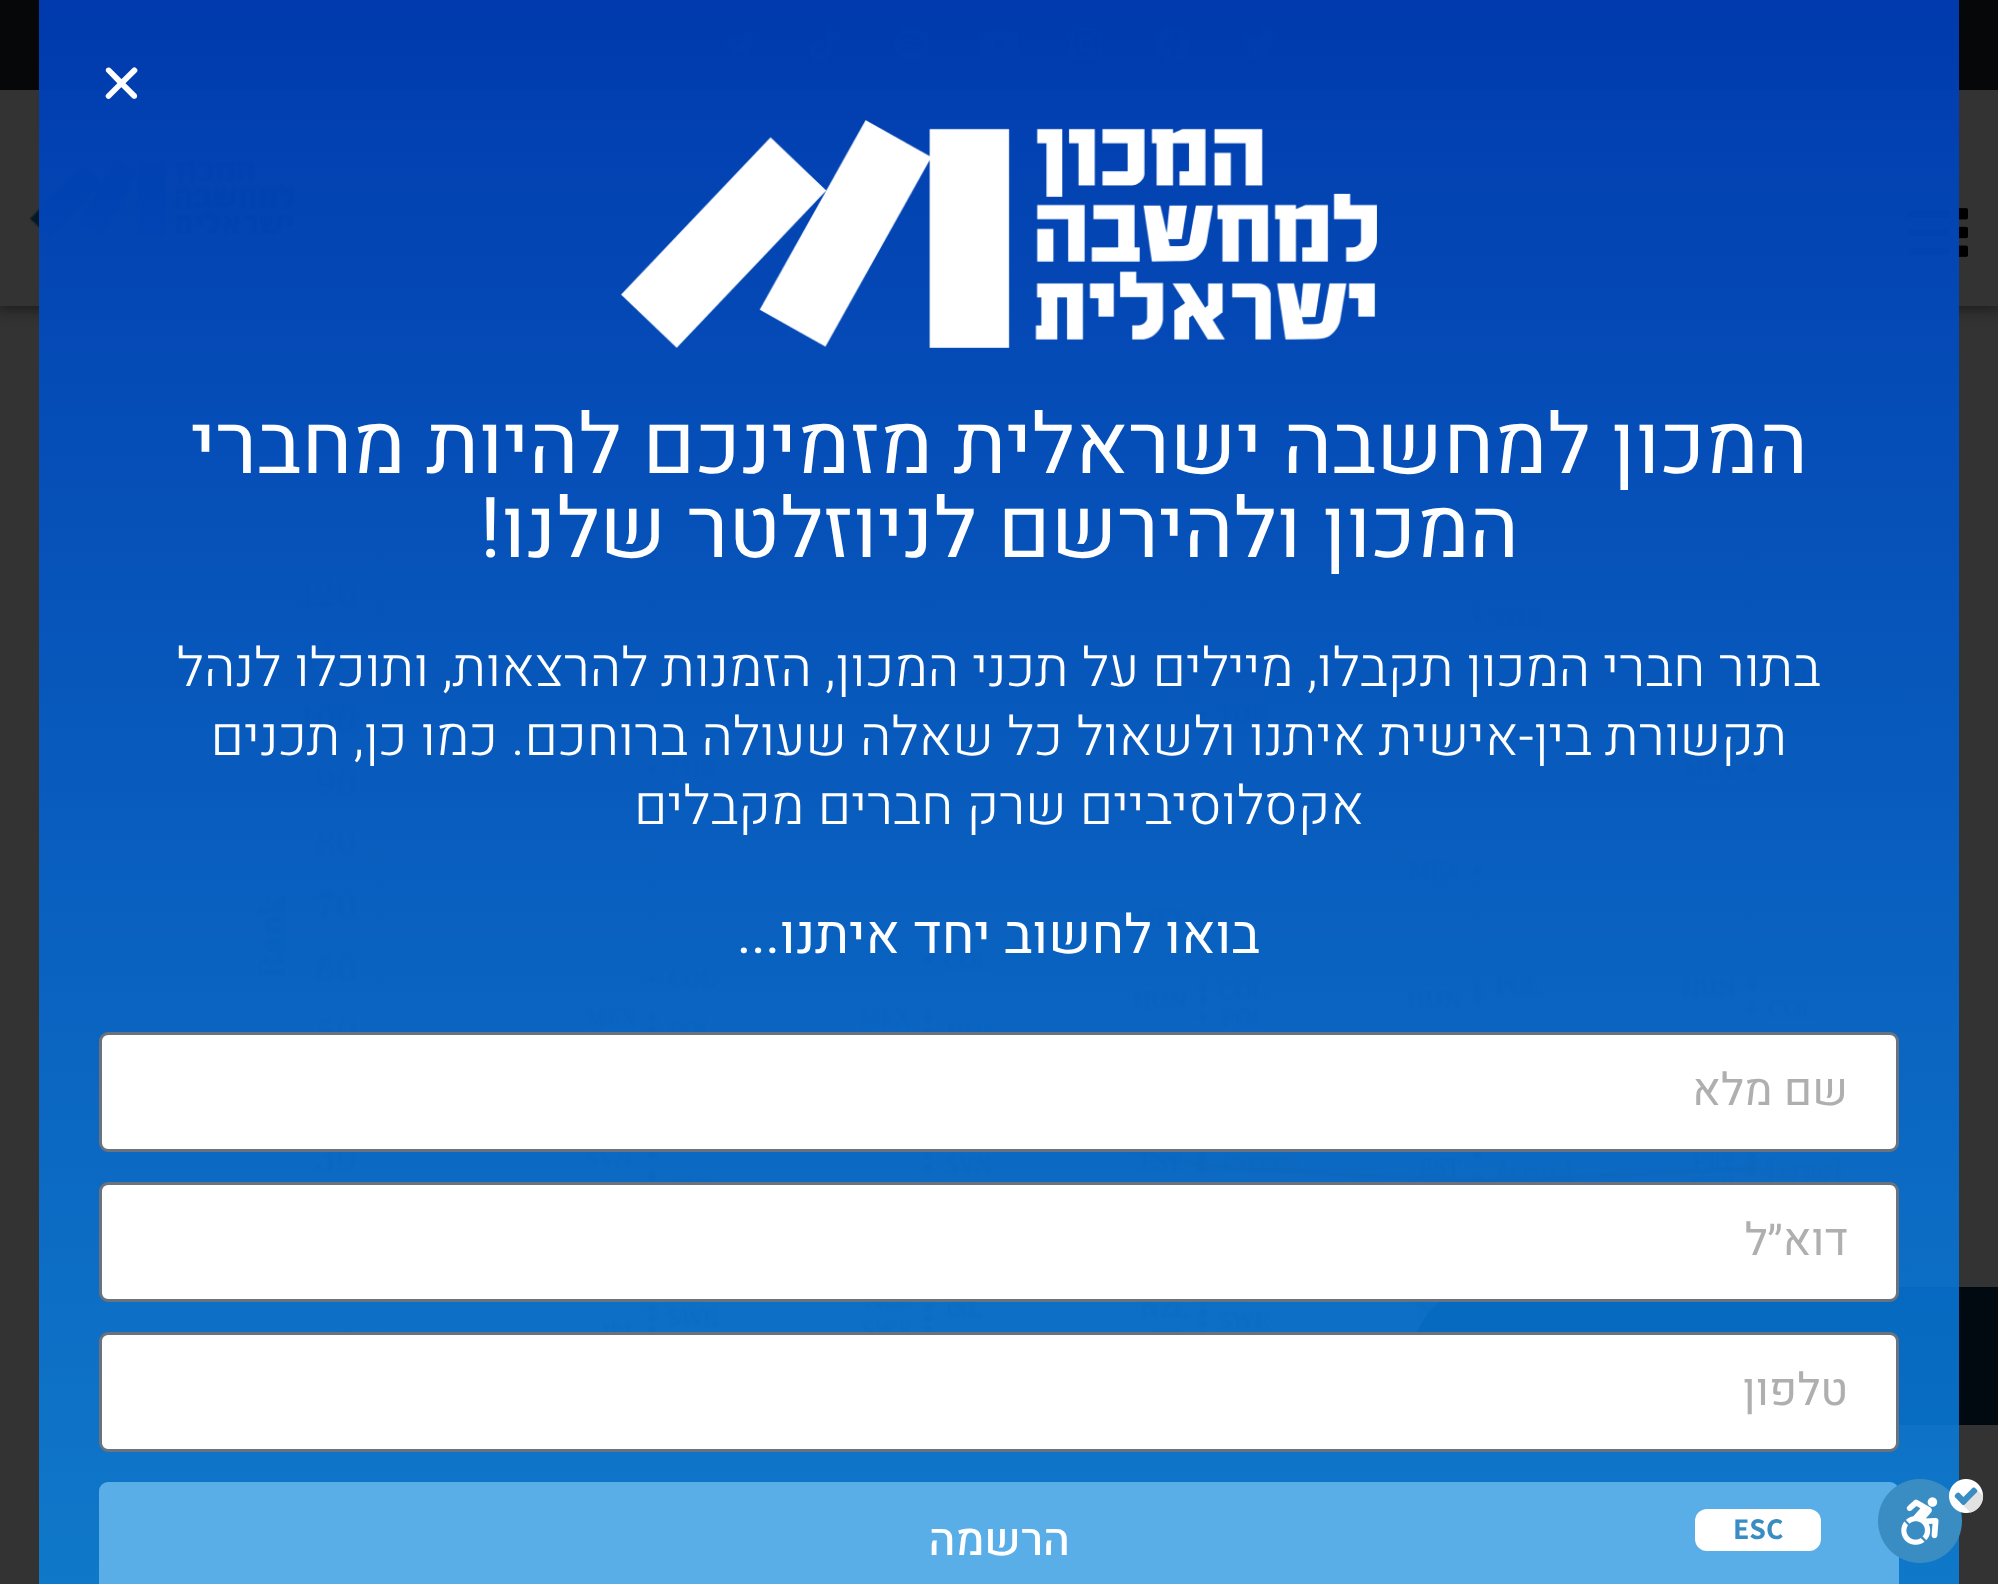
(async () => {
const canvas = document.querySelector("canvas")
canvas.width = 1998
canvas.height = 1584
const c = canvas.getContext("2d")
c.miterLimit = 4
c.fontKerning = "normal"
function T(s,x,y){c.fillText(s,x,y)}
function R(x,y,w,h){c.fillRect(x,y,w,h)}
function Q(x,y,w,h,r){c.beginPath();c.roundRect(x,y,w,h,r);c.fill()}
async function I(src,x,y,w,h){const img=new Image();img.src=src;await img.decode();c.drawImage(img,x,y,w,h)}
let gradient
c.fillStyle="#333"
R(0,0,1998,1584)
await I("10.png",314,306,1601,28)
c.fillStyle="#00000080"
c.filter="blur(7.5px)"
c.beginPath()
c.rect(-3,87,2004,222)
c.fill()
c.filter="none"
c.fillStyle="#060708"
R(0,0,1998,90)
await I("1.png",1242,28,36,31)
await I("2.png",1155,26,36,35)
await I("3.png",1070,27,32,33)
await I("4.png",979,30,40,27)
await I("5.png",894,26,36,35)
await I("6.png",809,25,32,37)
await I("7.png",722,30,32,27)
c.fillStyle="#333"
R(0,90,1998,216)
await I("8.png",1908,208,60,49)
await I("9.png",30,159,264,78)
await I("11.png",257,539,1658,793)
c.fillStyle="#010a11"
c.beginPath()
c.roundRect(1413,1287,585,138,[69,0,0,69])
c.fill()
gradient = c.createLinearGradient(999,0,999,1584)
gradient.addColorStop(0,"#003bb1fa")
gradient.addColorStop(1,"#0984e3d9")
c.fillStyle = gradient
R(39,0,1920,1584)
await I("12.png",105,67,33,32)
await I("13.png",621,120,756,228)
c.direction="rtl"
c.font="84px Heebo"
c.fillStyle="#fff"
T("המכון למחשבה ישראלית מזמינכם להיות מחברי",1808,473)
T("המכון ולהירשם לניוזלטר שלנו!",1519,557)
c.font="300 54px Heebo"
T("בתור חברי המכון תקבלו, מיילים על תכני המכון, הזמנות להרצאות, ותוכלו לנהל",1821,686)
T("תקשורת בין-אישית איתנו ולשאול כל שאלה שעולה ברוחכם. כמו כן, תכנים",1787,755)
T("אקסלוסיביים שרק חברים מקבלים",1364,824)
c.font="54px Heebo"
T("בואו לחשוב יחד איתנו...",1260,953)
c.beginPath()
c.roundRect(100.5,1033.5,1797,117,7.5)
c.fill()
c.strokeStyle="#69727d"
c.lineWidth=3
c.stroke()
c.font="45px Heebo"
c.fillStyle="#afafaf"
T("שם מלא",1848,1105)
c.fillStyle="#fff"
c.beginPath()
c.roundRect(100.5,1183.5,1797,117,7.5)
c.fill()
c.stroke()
c.fillStyle="#afafaf"
T("דוא״ל",1848,1255)
c.fillStyle="#fff"
c.beginPath()
c.roundRect(100.5,1333.5,1797,117,7.5)
c.fill()
c.stroke()
c.fillStyle="#afafaf"
T("טלפון",1848,1405)
c.fillStyle="#59aee7"
c.beginPath()
c.roundRect(99,1482,1800,102,[9,9,0,0])
c.fill()
c.font="500 45px Heebo"
c.fillStyle="#fff"
T("הרשמה",1070,1555)
await I("14.png",1878,1479,106,84)
Q(1695,1509,126,42,12)
c.direction="ltr"
c.font="bold 30px Assistant"
c.fillStyle="#3a8dc2"
T("ESC",1733,1539)
})()
